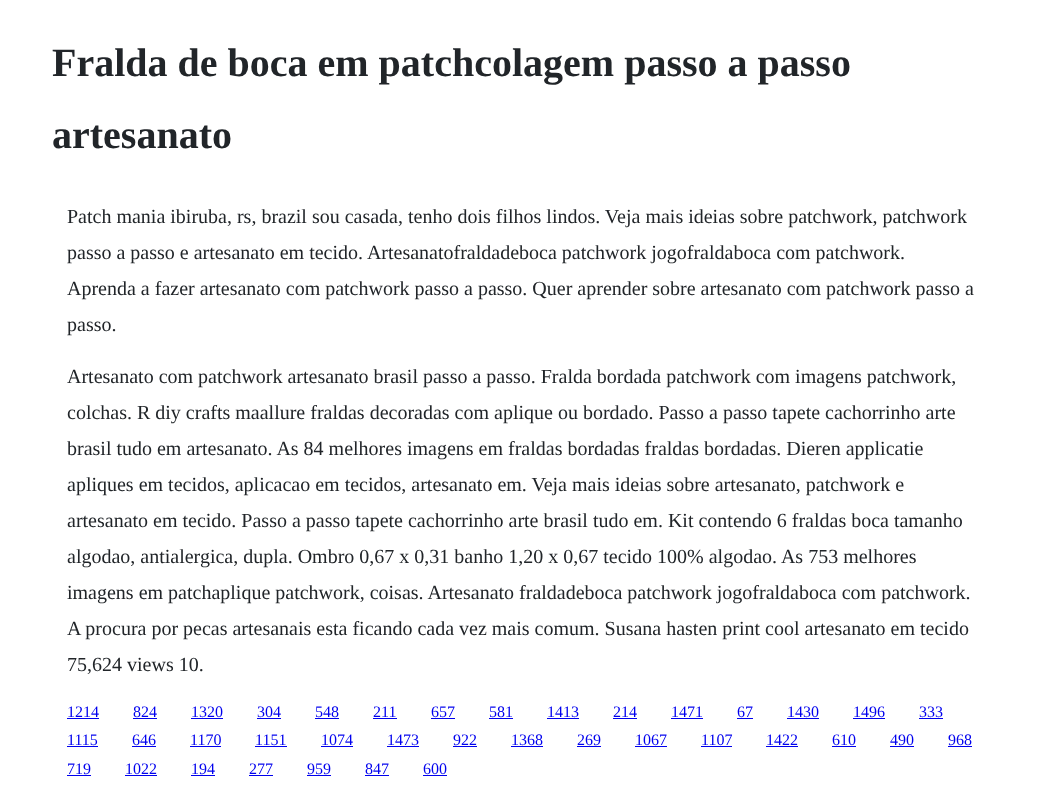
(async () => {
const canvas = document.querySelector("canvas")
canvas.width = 1044
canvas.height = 786
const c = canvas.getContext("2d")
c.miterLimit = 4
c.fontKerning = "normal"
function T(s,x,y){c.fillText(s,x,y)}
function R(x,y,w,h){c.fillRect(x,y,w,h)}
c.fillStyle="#fff"
R(0,0,1044,786)
c.font="bold 40px Liberation Serif"
c.fillStyle="#212529"
T("Fralda de boca em patchcolagem passo a passo",52,76)
T("artesanato",52,148)
c.font="20px Liberation Serif"
T("Patch mania ibiruba, rs, brazil sou casada, tenho dois filhos lindos. Veja mais ideias sobre patchwork, patchwork",67,223)
T("passo a passo e artesanato em tecido. Artesanatofraldadeboca patchwork jogofraldaboca com patchwork.",67,259)
T("Aprenda a fazer artesanato com patchwork passo a passo. Quer aprender sobre artesanato com patchwork passo a",67,295)
T("passo.",67,331)
T("Artesanato com patchwork artesanato brasil passo a passo. Fralda bordada patchwork com imagens patchwork,",67,383)
T("colchas. R diy crafts maallure fraldas decoradas com aplique ou bordado. Passo a passo tapete cachorrinho arte",67,419)
T("brasil tudo em artesanato. As 84 melhores imagens em fraldas bordadas fraldas bordadas. Dieren applicatie",67,455)
T("apliques em tecidos, aplicacao em tecidos, artesanato em. Veja mais ideias sobre artesanato, patchwork e",67,491)
T("artesanato em tecido. Passo a passo tapete cachorrinho arte brasil tudo em. Kit contendo 6 fraldas boca tamanho",67,527)
T("algodao, antialergica, dupla. Ombro 0,67 x 0,31 banho 1,20 x 0,67 tecido 100% algodao. As 753 melhores",67,563)
T("imagens em patchaplique patchwork, coisas. Artesanato fraldadeboca patchwork jogofraldaboca com patchwork.",67,599)
T("A procura por pecas artesanais esta ficando cada vez mais comum. Susana hasten print cool artesanato em tecido",67,635)
T("75,624 views 10.",67,671)
c.font="16px Liberation Serif"
c.fillStyle="#00e"
T("1214",67,717)
R(67,718,32,1)
T("824",133,717)
R(133,718,24,1)
T("1320",191,717)
R(191,718,32,1)
T("304",257,717)
R(257,718,24,1)
T("548",315,717)
R(315,718,24,1)
T("211",373,717)
R(373,718,24,1)
T("657",431,717)
R(431,718,24,1)
T("581",489,717)
R(489,718,24,1)
T("1413",547,717)
R(547,718,32,1)
T("214",613,717)
R(613,718,24,1)
T("1471",671,717)
R(671,718,32,1)
T("67",737,717)
R(737,718,16,1)
T("1430",787,717)
R(787,718,32,1)
T("1496",853,717)
R(853,718,32,1)
T("333",919,717)
R(919,718,24,1)
T("1115",67,745)
R(67,746,31,1)
T("646",132,745)
R(132,746,24,1)
T("1170",190,745)
R(190,746,31,1)
T("1151",255,745)
R(255,746,32,1)
T("1074",321,745)
R(321,746,32,1)
T("1473",387,745)
R(387,746,32,1)
T("922",453,745)
R(453,746,24,1)
T("1368",511,745)
R(511,746,32,1)
T("269",577,745)
R(577,746,24,1)
T("1067",635,745)
R(635,746,32,1)
T("1107",701,745)
R(701,746,31,1)
T("1422",766,745)
R(766,746,32,1)
T("610",832,745)
R(832,746,24,1)
T("490",890,745)
R(890,746,24,1)
T("968",948,745)
R(948,746,24,1)
T("719",67,774)
R(67,775,24,1)
T("1022",125,774)
R(125,775,32,1)
T("194",191,774)
R(191,775,24,1)
T("277",249,774)
R(249,775,24,1)
T("959",307,774)
R(307,775,24,1)
T("847",365,774)
R(365,775,24,1)
T("600",423,774)
R(423,775,24,1)
})()
